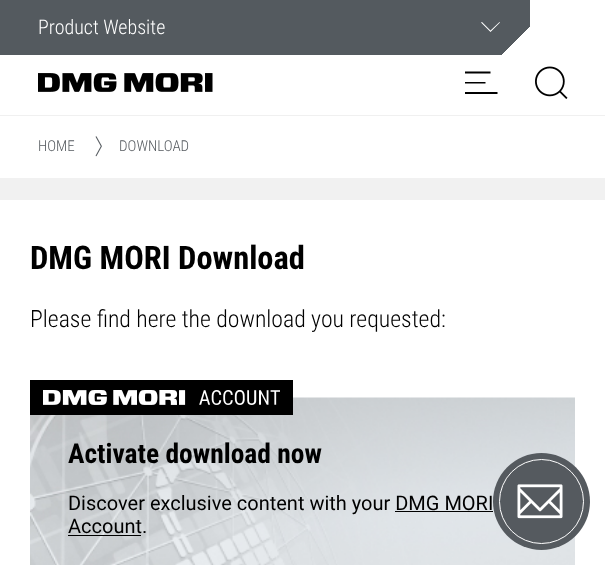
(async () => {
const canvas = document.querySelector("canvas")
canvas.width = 605
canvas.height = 565
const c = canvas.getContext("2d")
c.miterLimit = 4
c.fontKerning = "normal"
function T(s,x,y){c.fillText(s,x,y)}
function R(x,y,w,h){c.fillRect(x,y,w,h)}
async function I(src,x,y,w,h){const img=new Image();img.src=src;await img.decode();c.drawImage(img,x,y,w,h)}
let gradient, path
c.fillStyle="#fff"
R(0,0,605,565)
gradient = c.createLinearGradient(411,174,119,-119)
gradient.addColorStop(.05,"#fff")
gradient.addColorStop(.05,"#545a5f")
c.fillStyle = gradient
R(0,0,530,55)
c.font="300 20px Roboto Condensed"
c.fillStyle="#fff"
T("Product Website",38,34)
path = new Path2D("M500 22.5l-.5-.5l-9 8.5l-8.5-8.5l-1 .5l9.5 9.5z")
c.fill(path)
await I("1.png",38,73,175,19)
c.fillStyle="#000"
path = new Path2D("M465 94h32.5v-2h-32.5zm0-10.5h20.5v-1.5h-20.5zm0-10h25.5v-2h-25.5z")
c.fill(path)
await I("2.png",535,66,33,33)
c.fillStyle="#f0f0f0"
R(0,115,605,1)
c.font="300 15px Roboto Condensed"
c.fillStyle="#555a5f"
T("HOME",38,151)
await I("3.png",95,136,7,21)
T("DOWNLOAD",119,151)
await I("5.png",30,397,545,168)
c.beginPath()
c.arc(541.5,501.5,48.5,0,7)
c.fill()
c.beginPath()
c.arc(541.5,501.5,42,0,7)
c.strokeStyle="#fff"
c.stroke()
await I("4.png",517,484,46,35)
c.fillStyle="#f1f1f1"
R(0,178,605,22)
c.font="bold 32.5px Roboto Condensed"
c.fillStyle="#000"
T("DMG MORI Download",30,269)
c.font="300 23.75px Roboto Condensed"
T("Please find here the download you requested:",30,327)
R(30,380,263,35)
await I("6.png",43,390,237,15)
c.font="bold 27.5px Roboto Condensed"
T("Activate download now",68,463)
c.font="20px Roboto"
T("Discover exclusive content with your DMG MORI",68,510)
T("Account.",68,533)
R(395,511,98,1)
R(68,535,73,1)
})()
